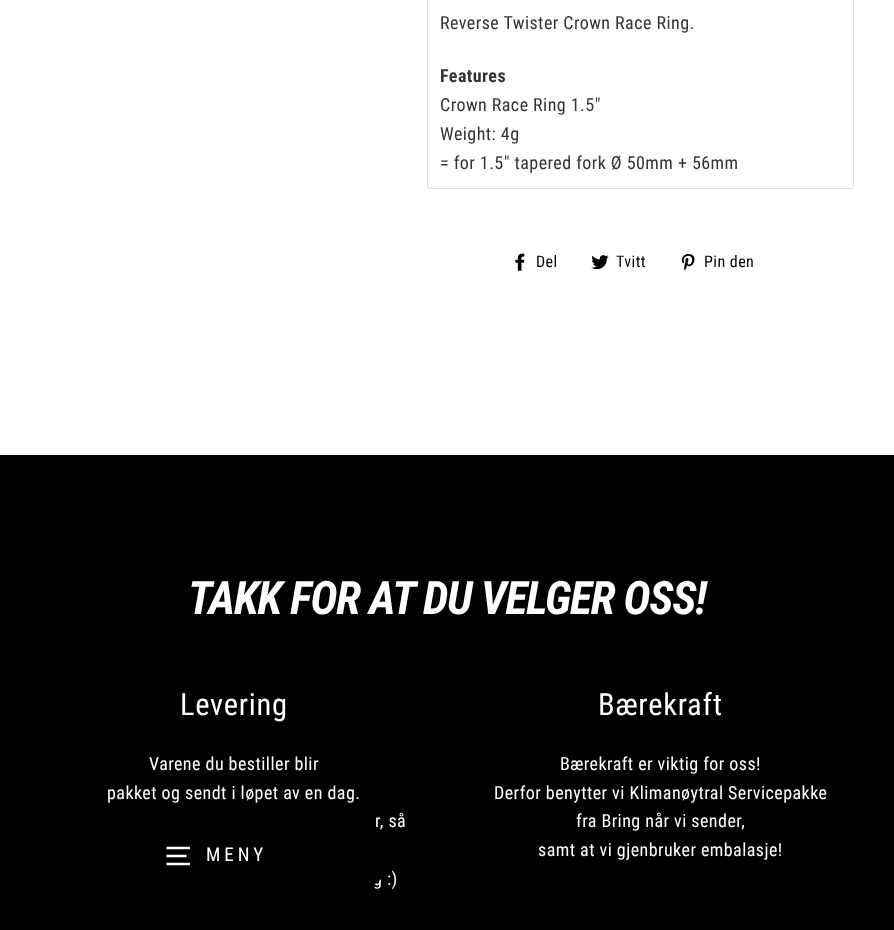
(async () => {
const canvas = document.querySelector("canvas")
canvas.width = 894
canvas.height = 930
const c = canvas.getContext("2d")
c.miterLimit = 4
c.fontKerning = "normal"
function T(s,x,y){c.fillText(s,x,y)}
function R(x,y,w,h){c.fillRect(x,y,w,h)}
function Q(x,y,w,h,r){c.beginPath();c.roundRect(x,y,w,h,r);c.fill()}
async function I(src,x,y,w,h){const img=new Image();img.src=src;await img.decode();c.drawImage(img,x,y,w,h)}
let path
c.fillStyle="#fff"
R(0,0,894,930)
path = new Path2D("M427.5-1.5h423.5c1.5 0 2.5 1 2.5 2.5v185c0 1.5-1 2.5-2.5 2.5h-421c-1.5 0-2.5-1-2.5-2.5z")
c.strokeStyle="#ddd"
c.stroke(path)
c.letterSpacing="0.45px"
c.font="18px Roboto Condensed"
c.fillStyle="#333"
T("Reverse Twister Crown Race Ring.",440,29)
c.font="bold 18px Roboto Condensed"
T("Features",440,82)
c.font="18px Roboto Condensed"
T("Crown Race Ring 1.5\"",440,111)
T("Weight: 4g",440,140)
T("= for 1.5\" tapered fork Ø 50mm + 56mm",440,169)
await I("1.png",515,253,10,18)
c.font="16px Roboto Condensed"
c.fillStyle="#000"
T("Del",536,267)
await I("2.png",591,255,18,15)
T("Tvitt",616,267)
await I("3.png",681,254,14,17)
T("Pin den",704,267)
R(0,455,894,475)
c.letterSpacing="-1.15px"
c.font="italic bold 46px Roboto Condensed"
c.fillStyle="#fff"
T("TAKK FOR AT DU VELGER OSS!",188,614)
c.letterSpacing="0.75px"
c.font="30.5px Roboto Condensed"
T("Levering",180,715)
c.letterSpacing="0.45px"
c.font="18px Roboto Condensed"
T("Varene du bestiller blir",149,770)
T("pakket og sendt i løpet av en dag.",107,799)
T("r, så",375,827)
T("g :)",373,885)
c.letterSpacing="0.75px"
c.font="30.5px Roboto Condensed"
T("Bærekraft",598,715)
c.letterSpacing="0.45px"
c.font="18px Roboto Condensed"
T("Bærekraft er viktig for oss!",560,770)
T("Derfor benytter vi Klimanøytral Servicepakke",494,799)
T("fra Bring når vi sender,",576,827)
T("samt at vi gjenbruker embalasje!",538,856)
c.fillStyle="#000"
Q(40,822,350,68,34)
path = new Path2D("M166.5 848h23.5m-23.5 8h20m-20 8h23.5")
c.strokeStyle="#fff"
c.lineWidth=2.3
c.stroke(path)
c.letterSpacing="4px"
c.font="19px Roboto Condensed"
c.fillStyle="#fff"
T("MENY",206,861)
})()
